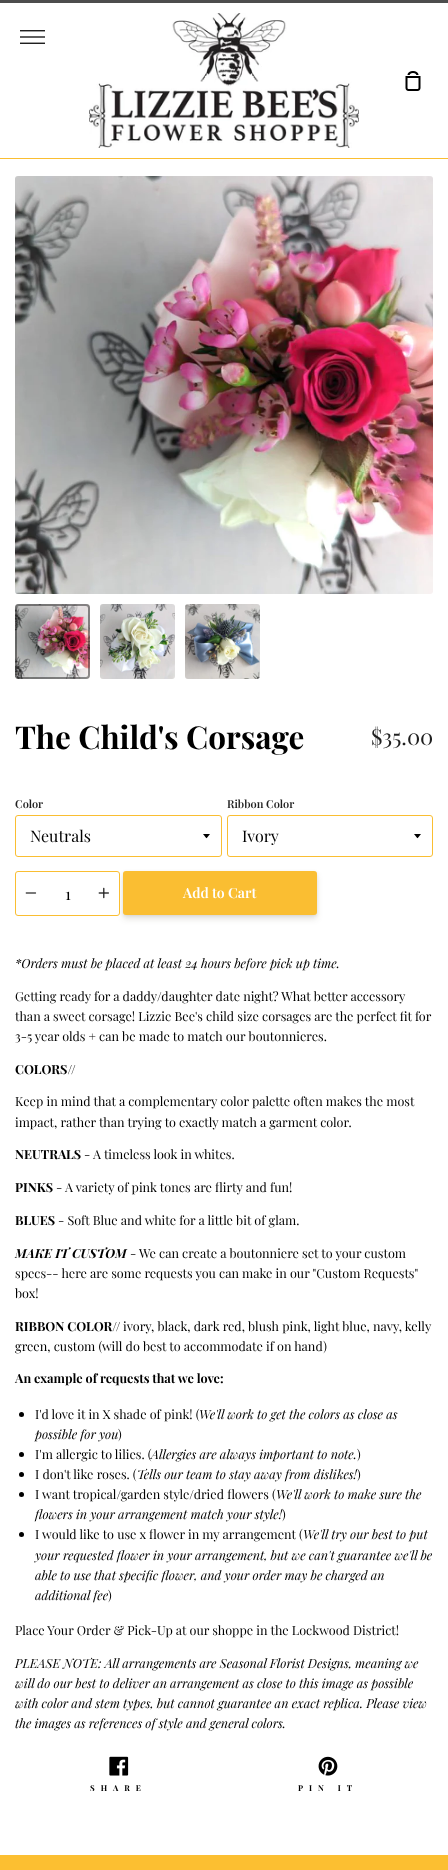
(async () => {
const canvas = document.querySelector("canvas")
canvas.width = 448
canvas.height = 1870
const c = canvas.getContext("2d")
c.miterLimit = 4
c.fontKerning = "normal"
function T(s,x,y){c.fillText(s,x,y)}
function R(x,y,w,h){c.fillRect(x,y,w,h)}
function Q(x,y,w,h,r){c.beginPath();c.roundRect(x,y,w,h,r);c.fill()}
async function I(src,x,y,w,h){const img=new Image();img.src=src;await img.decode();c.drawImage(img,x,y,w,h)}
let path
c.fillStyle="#fff"
R(0,0,448,1870)
c.fillStyle="#4d4d4d"
R(0,0,448,3)
c.fillStyle="#fabe32"
R(0,158,448,1)
await I("1.png",20,30,25,14)
await I("2.png",89,13,270,135)
await I("3.png",405,71,16,20)
await I("4.png",15,176,418,418)
await I("5.png",15,604,75,75)
c.beginPath()
c.roundRect(16,605,73,73,3)
c.strokeStyle="#1f1f1f80"
c.lineWidth=2
c.stroke()
await I("6.png",100,604,75,75)
await I("7.png",185,604,75,75)
c.font="bold 31.5px Playfair Display"
c.fillStyle="#000"
T("The Child's Corsage",15,749)
c.font="22px Playfair Display"
c.fillStyle="#1f1f1f"
T("$35.00",371,745)
c.font="600 11px Playfair Display"
T("Color",15,808)
c.fillStyle="#000"
path = new Path2D("M203 834c4.5 5.5 2.5 5.5 7 0z")
c.fill(path)
c.beginPath()
c.roundRect(15.5,815.5,206,41,2.5)
c.strokeStyle="#fabe32"
c.lineWidth=1
c.stroke()
c.font="16px Playfair Display"
T("Neutrals",30,842)
c.font="600 11px Playfair Display"
c.fillStyle="#1f1f1f"
T("Ribbon Color",227,808)
c.fillStyle="#000"
path = new Path2D("M414 834c4.5 5.5 2.5 5.5 7 0z")
c.fill(path)
c.beginPath()
c.roundRect(227.5,815.5,205,41,2.5)
c.stroke()
c.font="16px Playfair Display"
T("Ivory",242,842)
c.fillStyle="#2c1f0114"
c.filter="blur(1.5px)"
c.beginPath()
c.roundRect(123,872,194,44,3)
c.fill()
c.filter="none"
c.fillStyle="#2c1f011f"
c.filter="blur(3px)"
c.beginPath()
c.roundRect(123,875,194,44,3)
c.fill()
c.filter="none"
c.fillStyle="#fff"
c.beginPath()
c.roundRect(15.5,871.5,104,44,2.5)
c.fill()
c.stroke()
await I("8.png",25,892,12,2)
c.fillStyle="#000"
T("1",65,900)
await I("9.png",98,887,11,12)
c.fillStyle="#fabe32"
Q(123,871,194,44,3)
c.font="600 14px Playfair Display"
c.fillStyle="#fff"
T("Add to Cart",183,898)
c.font="italic 12.6px Playfair Display"
c.fillStyle="#000"
T("*Orders must be placed at least 24 hours before pick up time.",15,968)
c.font="12.6px Playfair Display"
T("Getting ready for a daddy/daughter date night? What better accessory",15,1001)
T("than a sweet corsage! Lizzie Bee's child size corsages are the perfect fit for",15,1021)
T("3-5 year olds + can be made to match our boutonnieres.",15,1041)
c.font="bold 12.6px Playfair Display"
T("COLORS//",15,1074)
c.font="12.6px Playfair Display"
T("Keep in mind that a complementary color palette often makes the most",15,1106)
T("impact, rather than trying to exactly match a garment color.",15,1127)
c.font="bold 12.6px Playfair Display"
T("NEUTRALS",15,1159)
c.font="12.6px Playfair Display"
T("- A timeless look in whites.",84,1159)
c.font="bold 12.6px Playfair Display"
T("PINKS",15,1192)
c.font="12.6px Playfair Display"
T("- A variety of pink tones are flirty and fun!",56,1192)
c.font="bold 12.6px Playfair Display"
T("BLUES",15,1225)
c.font="12.6px Playfair Display"
T("- Soft Blue and white for a little bit of glam.",58,1225)
c.font="italic bold 12.6px Playfair Display"
T("MAKE IT CUSTOM",15,1258)
c.font="12.6px Playfair Display"
T("- We can create a boutonniere set to your custom",130,1258)
T("specs-- here are some requests you can make in our \"Custom Requests\"",15,1278)
T("box!",15,1298)
c.font="bold 12.6px Playfair Display"
T("RIBBON COLOR//",15,1331)
c.font="12.6px Playfair Display"
T("ivory, black, dark red, blush pink, light blue, navy, kelly",123,1331)
T("green, custom (will do best to accommodate if on hand)",15,1351)
c.font="bold 12.6px Playfair Display"
T("An example of requests that we love:",15,1383)
c.beginPath()
c.arc(21.5,1414.5,2.5,0,7)
c.fill()
c.font="12.6px Playfair Display"
T("I'd love it in X shade of pink! (",35,1419)
c.font="italic 12.6px Playfair Display"
T("We'll work to get the colors as close as",199,1419)
T("possible for you",35,1439)
c.font="12.6px Playfair Display"
T(")",118,1439)
c.beginPath()
c.arc(21.5,1454.5,2.5,0,7)
c.fill()
T("I'm allergic to lilies. (",35,1459)
c.font="italic 12.6px Playfair Display"
T("Allergies are always important to note.",151,1459)
c.font="12.6px Playfair Display"
T(")",357,1459)
c.beginPath()
c.arc(21.5,1474.5,2.5,0,7)
c.fill()
T("I don't like roses. (",35,1479)
c.font="italic 12.6px Playfair Display"
T("Tells our team to stay away from dislikes!",137,1479)
c.font="12.6px Playfair Display"
T(")",357,1479)
c.beginPath()
c.arc(21.5,1494.5,2.5,0,7)
c.fill()
T("I want tropical/garden style/dried flowers (",35,1499)
c.font="italic 12.6px Playfair Display"
T("We'll work to make sure the",276,1499)
T("flowers in your arrangement match your style!",35,1519)
c.font="12.6px Playfair Display"
T(")",282,1519)
c.beginPath()
c.arc(21.5,1534.5,2.5,0,7)
c.fill()
T("I would like to use x flower in my arrangement (",35,1539)
c.font="italic 12.6px Playfair Display"
T("We'll try our best to put",303,1539)
T("your requested flower in your arrangement, but we can't guarantee we'll be",35,1560)
T("able to use that specific flower, and your order may be charged an",35,1580)
T("additional fee",35,1600)
c.font="12.6px Playfair Display"
T(")",108,1600)
T("Place Your Order & Pick-Up at our shoppe in the Lockwood District!",15,1635)
c.font="italic 12.6px Playfair Display"
T("PLEASE NOTE: All arrangements are Seasonal Florist Designs, meaning we",15,1668)
T("will do our best to deliver an arrangement as close to this image as possible",15,1688)
T("with color and stem types, but cannot guarantee an exact replica. Please view",15,1708)
T("the images as references of style and general colors.",15,1728)
await I("10.png",109,1756,20,20)
c.letterSpacing="6px"
c.font="bold 8px Playfair Display"
T("SHARE",90,1791)
await I("11.png",318,1756,20,20)
T("PIN IT",298,1791)
c.fillStyle="#fcbf31"
R(0,1855,448,15)
})()
